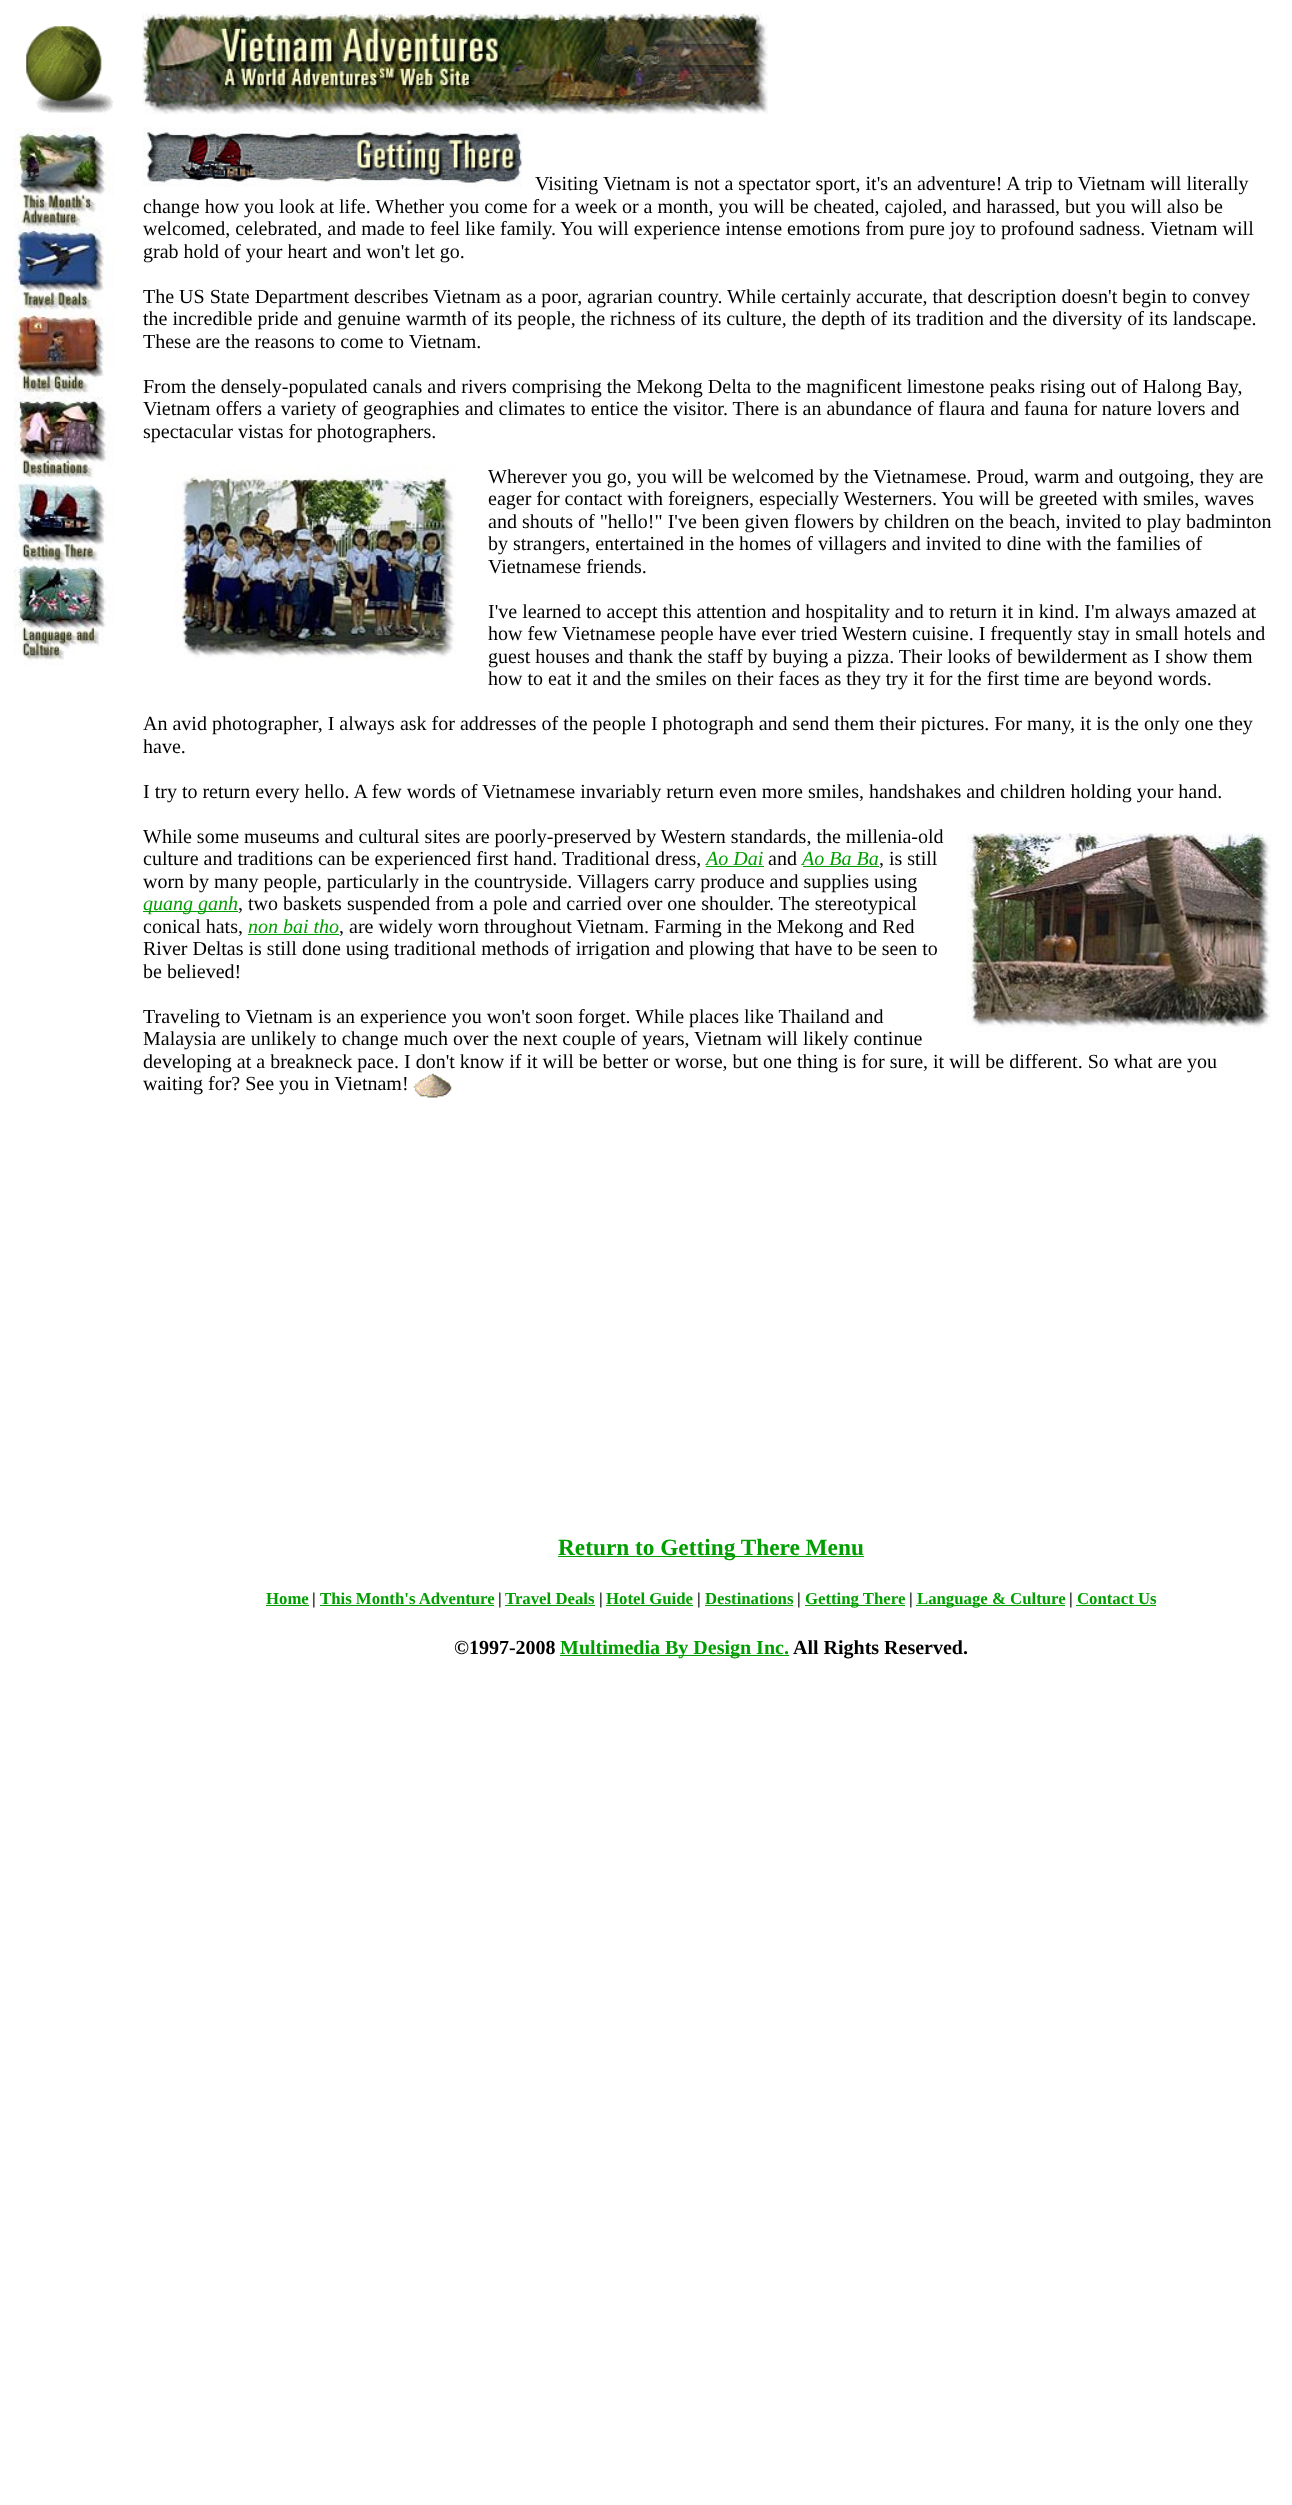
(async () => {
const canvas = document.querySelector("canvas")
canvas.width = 1292
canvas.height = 2505
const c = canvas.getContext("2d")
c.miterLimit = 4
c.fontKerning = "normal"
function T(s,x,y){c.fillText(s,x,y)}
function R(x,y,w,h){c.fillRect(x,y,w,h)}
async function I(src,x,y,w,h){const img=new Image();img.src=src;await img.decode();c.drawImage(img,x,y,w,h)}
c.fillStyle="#fff"
R(0,0,1292,2505)
await I("1.png",26,26,88,87)
await I("2.png",142,13,626,101)
await I("3.png",13,127,101,538)
await I("4.png",142,127,381,60)
c.font="20px Liberation Serif"
c.fillStyle="#000"
T("Visiting Vietnam is not a spectator sport, it's an adventure! A trip to Vietnam will literally",535,190)
T("change how you look at life. Whether you come for a week or a month, you will be cheated, cajoled, and harassed, but you will also be",143,213)
T("welcomed, celebrated, and made to feel like family. You will experience intense emotions from pure joy to profound sadness. Vietnam will",143,235)
T("grab hold of your heart and won't let go.",143,258)
T("The US State Department describes Vietnam as a poor, agrarian country. While certainly accurate, that description doesn't begin to convey",143,303)
T("the incredible pride and genuine warmth of its people, the richness of its culture, the depth of its tradition and the diversity of its landscape.",143,325)
T("These are the reasons to come to Vietnam.",143,348)
T("From the densely-populated canals and rivers comprising the Mekong Delta to the magnificent limestone peaks rising out of Halong Bay,",143,393)
T("Vietnam offers a variety of geographies and climates to entice the visitor. There is an abundance of flaura and fauna for nature lovers and",143,415)
T("spectacular vistas for photographers.",143,438)
await I("5.png",175,465,281,195)
T("Wherever you go, you will be welcomed by the Vietnamese. Proud, warm and outgoing, they are",488,483)
T("eager for contact with foreigners, especially Westerners. You will be greeted with smiles, waves",488,505)
T("and shouts of \"hello!\" I've been given flowers by children on the beach, invited to play badminton",488,528)
T("by strangers, entertained in the homes of villagers and invited to dine with the families of",488,550)
T("Vietnamese friends.",488,573)
T("I've learned to accept this attention and hospitality and to return it in kind. I'm always amazed at",488,618)
T("how few Vietnamese people have ever tried Western cuisine. I frequently stay in small hotels and",488,640)
T("guest houses and thank the staff by buying a pizza. Their looks of bewilderment as I show them",488,663)
T("how to eat it and the smiles on their faces as they try it for the first time are beyond words.",488,685)
T("An avid photographer, I always ask for addresses of the people I photograph and send them their pictures. For many, it is the only one they",143,730)
T("have.",143,753)
T("I try to return every hello. A few words of Vietnamese invariably return even more smiles, handshakes and children holding your hand.",143,798)
T("While some museums and cultural sites are poorly-preserved by Western standards, the millenia-old",143,843)
await I("6.png",967,833,304,199)
T("culture and traditions can be experienced first hand. Traditional dress,",143,865)
c.font="italic 20px Liberation Serif"
c.fillStyle="#009e00"
T("Ao Dai",706,865)
R(706,866,58,1)
c.font="20px Liberation Serif"
c.fillStyle="#000"
T("and",768,865)
c.font="italic 20px Liberation Serif"
c.fillStyle="#009e00"
T("Ao Ba Ba",802,865)
R(803,866,76,1)
c.font="20px Liberation Serif"
c.fillStyle="#000"
T(", is still",879,865)
T("worn by many people, particularly in the countryside. Villagers carry produce and supplies using",143,888)
c.fillStyle="#009e00"
R(143,911,95,1)
c.font="italic 20px Liberation Serif"
T("quang ganh",143,910)
c.font="20px Liberation Serif"
c.fillStyle="#000"
T(", two baskets suspended from a pole and carried over one shoulder. The stereotypical",238,910)
T("conical hats,",143,933)
c.font="italic 20px Liberation Serif"
c.fillStyle="#009e00"
T("non bai tho",248,933)
R(248,934,91,1)
c.font="20px Liberation Serif"
c.fillStyle="#000"
T(", are widely worn throughout Vietnam. Farming in the Mekong and Red",339,933)
T("River Deltas is still done using traditional methods of irrigation and plowing that have to be seen to",143,955)
T("be believed!",143,978)
T("Traveling to Vietnam is an experience you won't soon forget. While places like Thailand and",143,1023)
T("Malaysia are unlikely to change much over the next couple of years, Vietnam will likely continue",143,1045)
T("developing at a breakneck pace. I don't know if it will be better or worse, but one thing is for sure, it will be different. So what are you",143,1068)
T("waiting for? See you in Vietnam!",143,1090)
await I("7.png",413,1073,39,25)
c.fillStyle="#009e00"
R(558,1556,306,1)
c.font="bold 23.3px Liberation Serif"
T("Return to Getting There Menu",558,1555)
c.font="bold 16.75px Liberation Serif"
T("Home",266,1604)
R(266,1605,43,1)
c.fillStyle="#000"
T("|",312,1604)
c.fillStyle="#009e00"
T("This Month's Adventure",320,1604)
R(320,1605,174,1)
c.fillStyle="#000"
T("|",498,1604)
c.fillStyle="#009e00"
T("Travel Deals",505,1604)
R(505,1605,90,1)
c.fillStyle="#000"
T("|",599,1604)
c.fillStyle="#009e00"
T("Hotel Guide",606,1604)
R(606,1605,87,1)
c.fillStyle="#000"
T("|",697,1604)
c.fillStyle="#009e00"
T("Destinations",705,1604)
R(705,1605,88,1)
c.fillStyle="#000"
T("|",797,1604)
c.fillStyle="#009e00"
R(805,1605,100,1)
T("Getting There",805,1604)
c.fillStyle="#000"
T("|",909,1604)
c.fillStyle="#009e00"
R(916,1605,149,1)
T("Language & Culture",917,1604)
c.fillStyle="#000"
T("|",1069,1604)
c.fillStyle="#009e00"
T("Contact Us",1077,1604)
R(1076,1605,80,1)
c.font="bold 20px Liberation Serif"
c.fillStyle="#000"
T("©1997-2008",454,1654)
c.fillStyle="#009e00"
R(560,1655,229,1)
T("Multimedia By Design Inc.",560,1654)
c.fillStyle="#000"
T("All Rights Reserved.",793,1654)
})()
